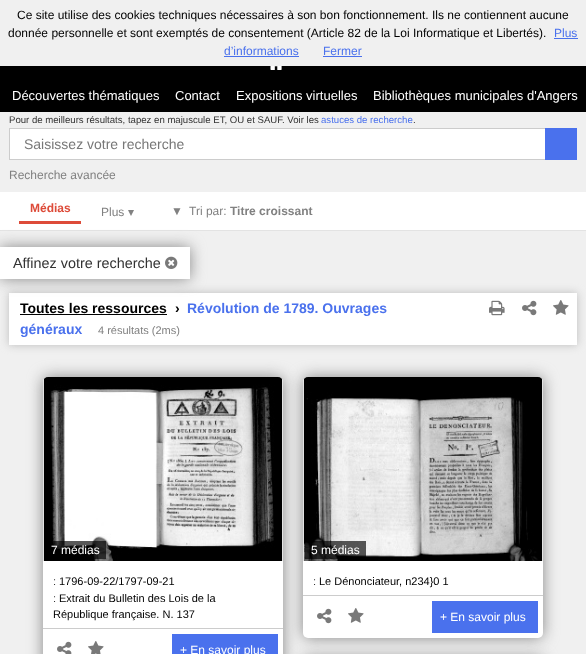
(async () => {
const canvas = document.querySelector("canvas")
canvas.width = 586
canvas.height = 654
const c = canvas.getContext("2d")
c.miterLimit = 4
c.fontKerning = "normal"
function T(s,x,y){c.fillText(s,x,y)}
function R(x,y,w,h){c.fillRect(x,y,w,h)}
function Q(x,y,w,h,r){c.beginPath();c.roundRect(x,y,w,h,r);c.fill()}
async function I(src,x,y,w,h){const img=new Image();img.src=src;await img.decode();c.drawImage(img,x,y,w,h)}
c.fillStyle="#f0f0f0"
R(0,0,586,654)
c.font="12px Liberation Sans"
c.fillStyle="#000"
T("Ce site utilise des cookies techniques nécessaires à son bon fonctionnement. Ils ne contiennent aucune",17,19)
T("donnée personnelle et sont exemptés de consentement (Article 82 de la Loi Informatique et Libertés).",8,37)
c.fillStyle="#4a71ed"
T("Plus",554,37)
c.fillStyle="#4970ec"
R(554,38,24,1)
c.fillStyle="#4a71ed"
T("d’informations",224,55)
c.fillStyle="#4970ec"
R(224,56,75,1)
c.fillStyle="#4a71ed"
T("Fermer",323,55)
c.fillStyle="#4970ec"
R(323,56,39,1)
c.fillStyle="#000"
R(0,66,586,46)
await I("1.png",270,66,12,4)
c.font="13px Liberation Sans"
c.fillStyle="#fff"
T("Découvertes thématiques",12,100)
T("Contact",175,100)
T("Expositions virtuelles",236,100)
T("Bibliothèques municipales d'Angers",373,100)
c.font="9.6px Liberation Sans"
c.fillStyle="#323232"
T("Pour de meilleurs résultats, tapez en majuscule ET, OU et SAUF. Voir les",9,123)
c.fillStyle="#4a71ed"
T("astuces de recherche",321,123)
c.fillStyle="#323232"
T(".",413,123)
c.fillStyle="#fff"
R(10,129,535,30)
c.strokeStyle="#ccc"
c.strokeRect(9.5,128.5,567,31)
c.font="14px Liberation Sans"
c.fillStyle="#777"
T("Saisissez votre recherche",24,149)
c.fillStyle="#4a71ed"
R(545,128,32,32)
c.font="12px Liberation Sans"
c.fillStyle="#818181"
T("Recherche avancée",9,179)
c.fillStyle="#fff"
R(0,192,586,38)
c.fillStyle="#e3e3e3"
R(0,230,586,1)
c.fillStyle="#dd4b39"
R(19,221,62,3)
c.font="bold 12px Liberation Sans"
T("Médias",30,212)
c.font="12px Liberation Sans"
c.fillStyle="#818181"
T("Plus",101,216)
c.font="12px DejaVu Sans"
T("▾",128,216)
c.font="12px Liberation Sans"
T("▼",171,215)
T("Tri par:",189,215)
c.font="bold 12px Liberation Sans"
T("Titre croissant",230,215)
c.fillStyle="#bbb"
c.filter="blur(4.5px)"
c.beginPath()
c.rect(9,293,568,52)
c.fill()
c.filter="none"
c.fillStyle="#fff"
R(9,293,568,52)
c.fillStyle="#888"
c.filter="blur(7.5px)"
c.beginPath()
c.rect(0,247,190,32)
c.fill()
c.filter="none"
c.fillStyle="#fff"
R(0,247,190,32)
c.font="14.4px Liberation Sans"
c.fillStyle="#323232"
T("Affinez votre recherche",13,268)
await I("2.png",165,256,13,13)
c.font="bold 14px Liberation Sans"
c.fillStyle="#000"
T("Toutes les ressources",20,313)
R(20,314,147,1)
T("›",175,313)
c.fillStyle="#4a71ed"
T("Révolution de 1789. Ouvrages",187,313)
T("généraux",20,334)
c.font="11px Liberation Sans"
c.fillStyle="#818181"
T("4 résultats (2ms)",98,334)
await I("3.png",489,300,16,16)
await I("4.png",522,300,15,16)
await I("5.png",553,300,16,15)
c.fillStyle="#888"
c.filter="blur(7.5px)"
c.beginPath()
c.roundRect(43,377,240,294,5)
c.fill()
c.filter="none"
c.fillStyle="#fff"
c.beginPath()
c.roundRect(43,377,240,277,[5,5,0,0])
c.fill()
c.fillStyle="#e3e3e3"
c.beginPath()
c.roundRect(43,377,240,184,[5,5,0,0])
c.fill()
await I("6.png",44,377,238,184)
c.fillStyle="#000000a6"
R(53,541,53,18)
c.font="12px Liberation Sans"
c.fillStyle="#fff"
T("7 médias",51,554)
c.font="11px Liberation Sans"
c.fillStyle="#323232"
T(":",53,585)
c.fillStyle="#000"
T("1796-09-22/1797-09-21",59,585)
c.fillStyle="#323232"
T(":",53,602)
c.fillStyle="#000"
T("Extrait du Bulletin des Lois de la",59,602)
T("République française. N. 137",53,618)
c.fillStyle="#ccc"
R(43,628,240,1)
await I("7.png",57,641,15,13)
await I("8.png",88,641,16,13)
c.fillStyle="#4a71ed"
R(172,634,106,20)
c.font="12px Liberation Sans"
c.fillStyle="#fff"
T("+ En savoir plus",180,654)
c.fillStyle="#888"
c.filter="blur(7.5px)"
c.beginPath()
c.roundRect(303,377,240,261,5)
c.fill()
c.filter="none"
c.fillStyle="#fff"
Q(303,377,240,261,5)
c.fillStyle="#e3e3e3"
c.beginPath()
c.roundRect(303,377,240,184,[5,5,0,0])
c.fill()
await I("9.png",304,377,238,184)
c.fillStyle="#000000a6"
R(305,541,61,18)
c.fillStyle="#fff"
T("5 médias",311,554)
c.font="11px Liberation Sans"
c.fillStyle="#323232"
T(":",313,585)
c.fillStyle="#000"
T("Le Dénonciateur, n234}0 1",319,585)
c.fillStyle="#ccc"
R(303,595,240,1)
await I("4.png",317,608,15,16)
await I("5.png",348,608,16,15)
c.fillStyle="#4a71ed"
R(432,601,106,32)
c.font="12px Liberation Sans"
c.fillStyle="#fff"
T("+ En savoir plus",440,621)
c.fillStyle="#888"
c.filter="blur(7.5px)"
c.beginPath()
c.roundRect(303,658,240,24,5)
c.fill()
c.filter="none"
})()
